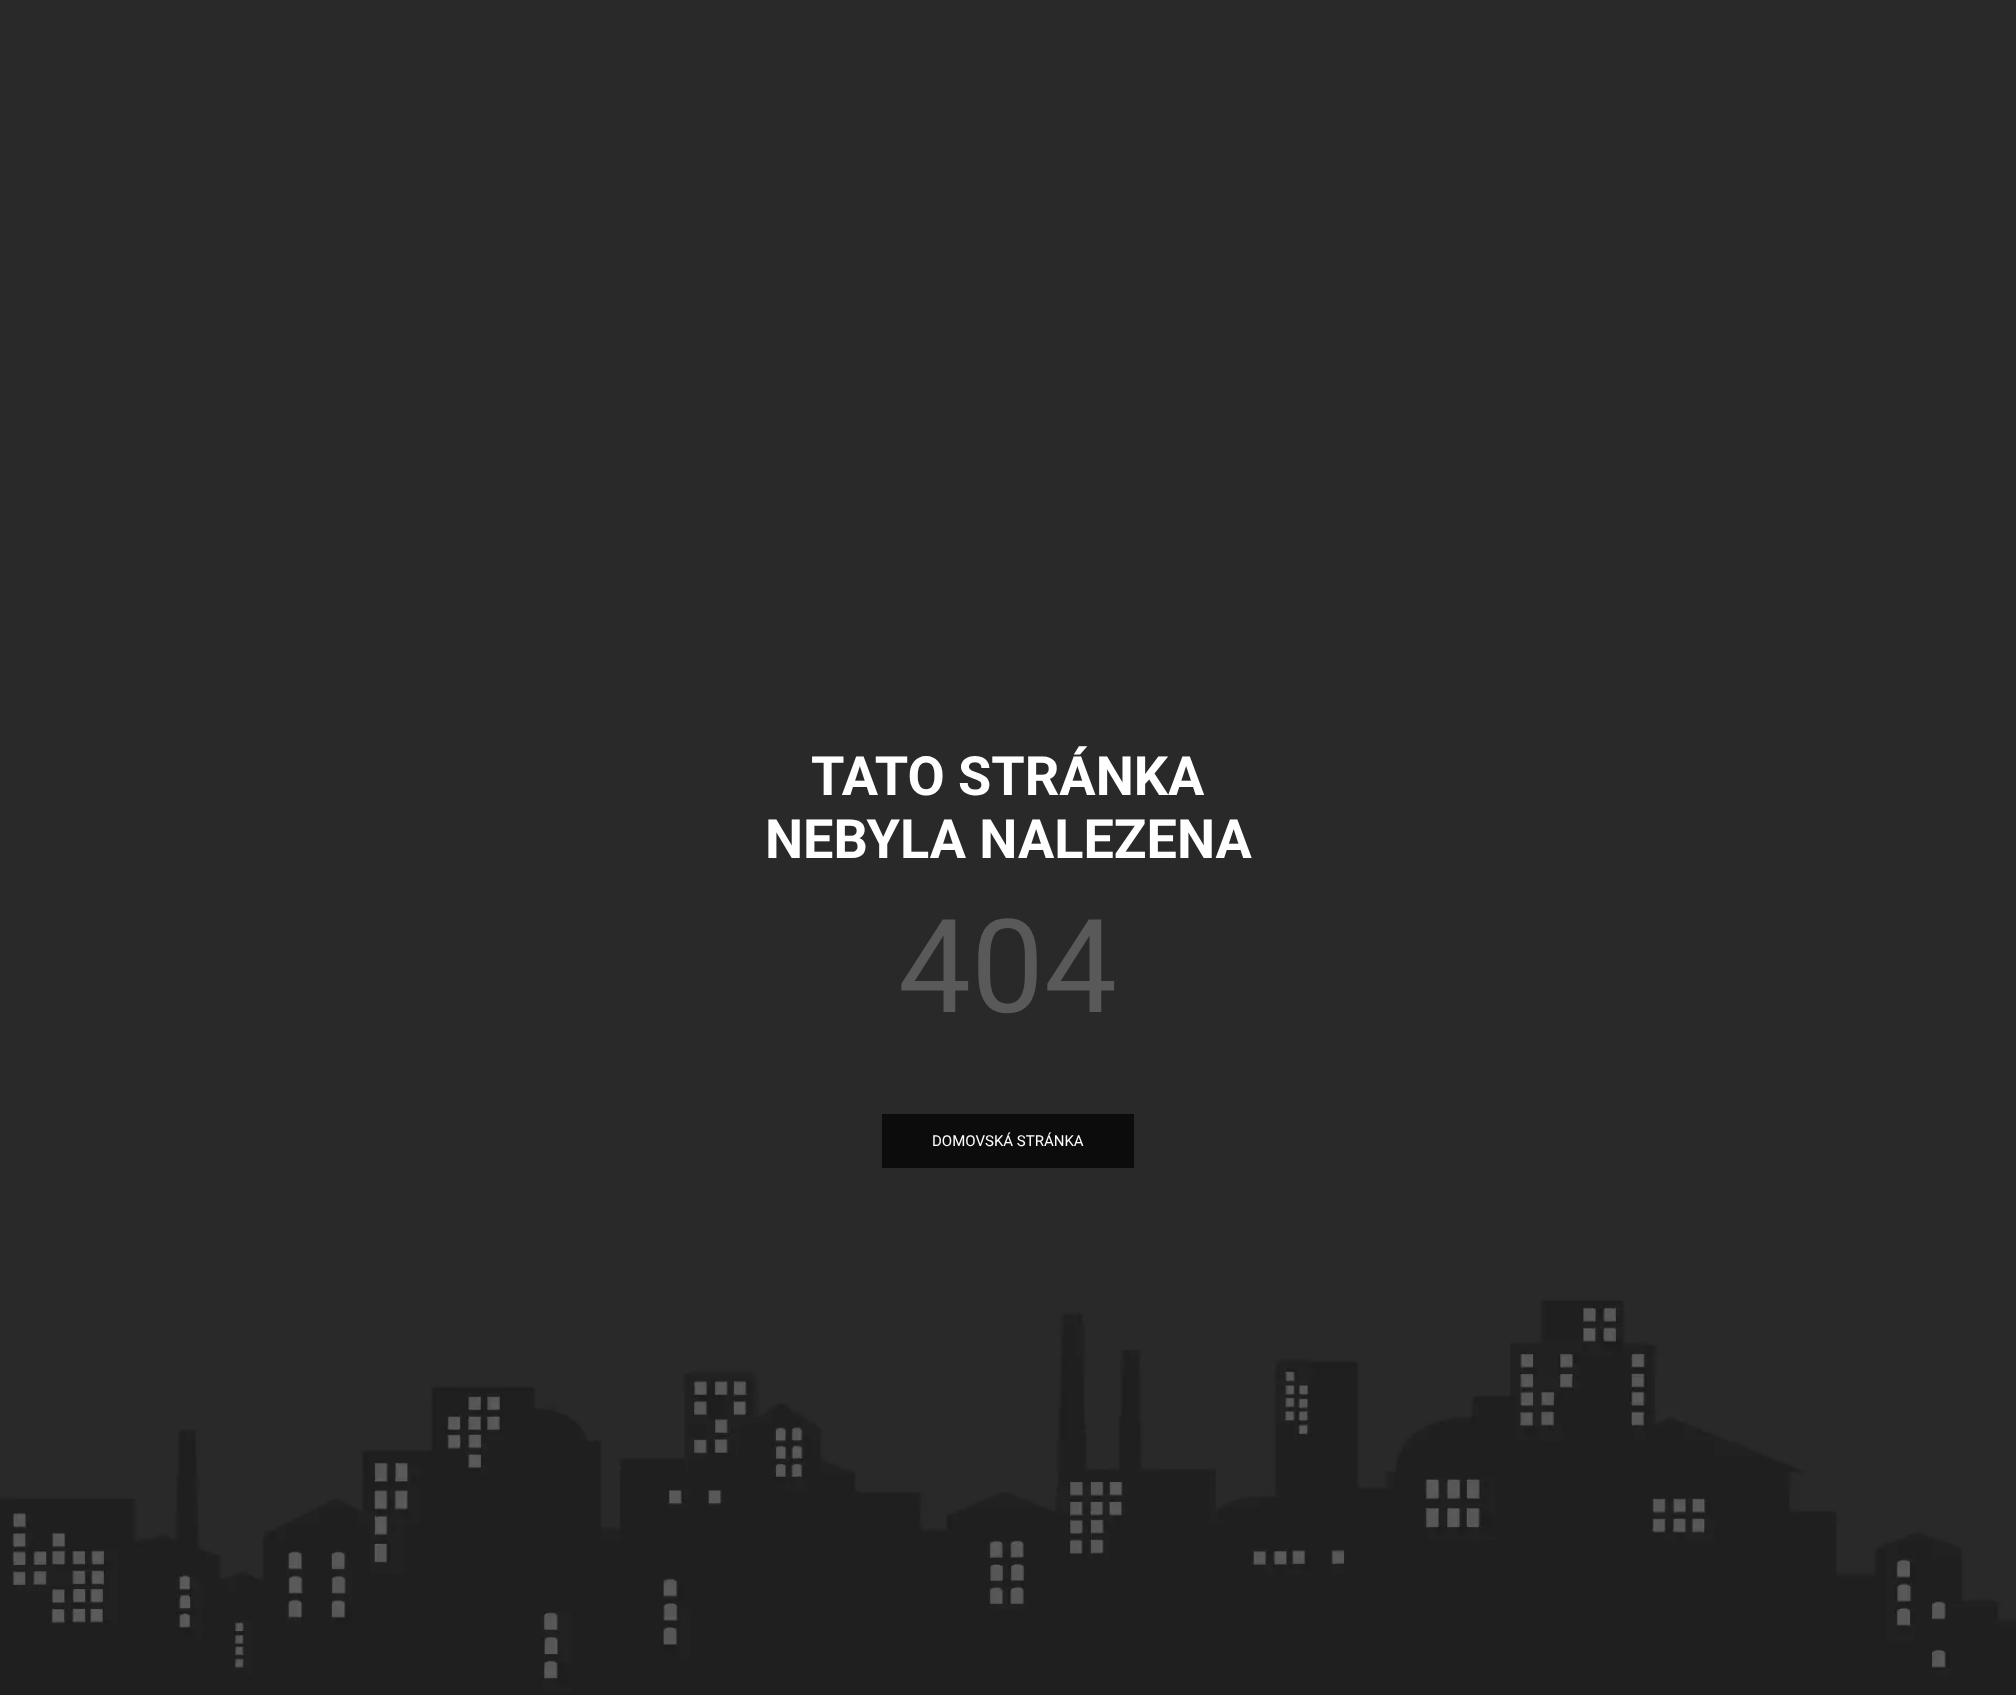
(async () => {
const canvas = document.querySelector("canvas")
canvas.width = 2016
canvas.height = 1695
const c = canvas.getContext("2d")
c.miterLimit = 4
c.fontKerning = "normal"
function T(s,x,y){c.fillText(s,x,y)}
function R(x,y,w,h){c.fillRect(x,y,w,h)}
async function I(src,x,y,w,h){const img=new Image();img.src=src;await img.decode();c.drawImage(img,x,y,w,h)}
c.fillStyle="#292929"
R(0,0,2016,1695)
await I("1.png",0,1300,2016,395)
c.font="bold 54px Roboto"
c.fillStyle="#fff"
T("TATO STRÁNKA",811,795)
T("NEBYLA NALEZENA",765,858)
c.font="130px Roboto"
c.fillStyle="#595959"
T("404",898,1012)
c.fillStyle="#0c0c0c"
R(882,1114,252,54)
c.font="15px Roboto"
c.fillStyle="#fff"
T("DOMOVSKÁ STRÁNKA",932,1146)
})()
